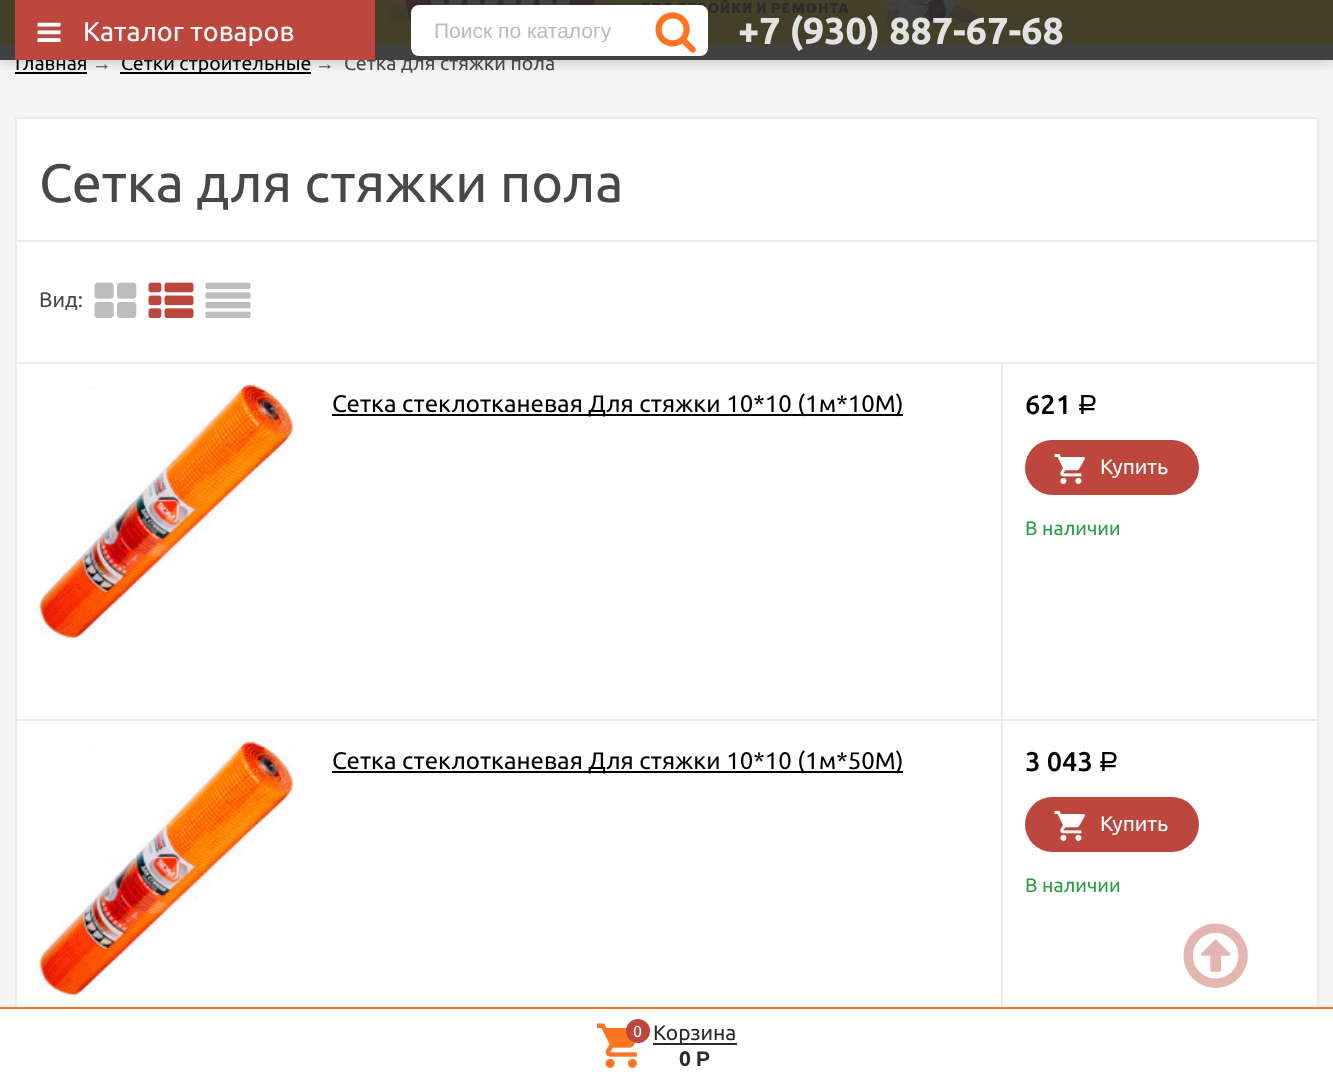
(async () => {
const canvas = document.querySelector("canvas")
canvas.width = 1333
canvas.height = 1077
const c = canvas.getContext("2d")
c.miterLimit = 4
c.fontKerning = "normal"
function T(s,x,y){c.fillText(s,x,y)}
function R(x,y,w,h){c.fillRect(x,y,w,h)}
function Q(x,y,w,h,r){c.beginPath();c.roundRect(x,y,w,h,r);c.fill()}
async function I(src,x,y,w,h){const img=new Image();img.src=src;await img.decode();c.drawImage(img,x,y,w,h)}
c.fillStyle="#f5f5f6"
R(0,0,1333,1077)
c.fillStyle="#ffec01"
R(0,0,1333,45)
await I("1.png",375,0,608,22)
c.fillStyle="#000"
R(15,72,72,2)
R(120,72,191,2)
c.save()
c.beginPath()
c.rect(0,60,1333,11)
c.clip()
c.fillStyle="#00000040"
c.filter="blur(7.5px)"
c.beginPath()
c.rect(0,0,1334,60)
c.fill()
c.filter="none"
c.restore()
c.font="19.5px Ubuntu"
T("Главная",15,70)
T("Сетки строительные",121,70)
c.fillStyle="#484848"
T("Сетка для стяжки пола",344,70)
c.fillStyle="#2e2e2ee6"
R(0,0,1333,60)
c.fillStyle="#bd463d"
R(15,0,360,60)
await I("2.png",37,22,24,20)
c.font="27px Ubuntu"
c.fillStyle="#fff"
T("Каталог товаров",83,41)
Q(411,5,297,51,8)
c.save()
c.beginPath()
c.rect(434,18,210,24)
c.clip()
c.font="21px Liberation Sans"
c.fillStyle="#bbb"
T("Поиск по каталогу",434,38)
c.restore()
await I("3.png",655,12,41,41)
c.font="bold 37.5px Ubuntu"
c.fillStyle="#e2e2e2"
T("+7 (930) 887-67-68",738,44)
c.font="19.5px Liberation Sans"
c.fillStyle="#484848"
T("→",92,70)
T("→",315,70)
c.fillStyle="#fff"
R(17,119,1300,888)
c.strokeStyle="#ebebeb"
c.lineWidth=2
c.strokeRect(16,118,1302,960)
c.font="54px Ubuntu"
c.fillStyle="#484848"
T("Сетка для стяжки пола",39,202)
c.fillStyle="#ebebeb"
R(17,240,1300,2)
c.font="21px Ubuntu"
c.fillStyle="#484848"
T("Вид:",39,307)
await I("4.png",94,282,43,36)
await I("5.png",148,282,46,36)
await I("6.png",205,282,46,36)
c.fillStyle="#ebebeb"
R(17,362,1300,2)
R(17,719,1300,2)
await I("7.png",39,385,255,255)
R(1001,363,2,356)
c.fillStyle="#000"
R(332,414,571,2)
c.font="24px Ubuntu"
T("Сетка стеклотканевая Для стяжки 10*10 (1м*10М)",332,412)
c.font="500 27px Ubuntu"
T("621",1025,414)
c.font="27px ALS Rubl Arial"
T("Р",1077,414)
c.fillStyle="#bd463d"
Q(1025,440,174,55,27.5)
await I("8.png",1054,453,31,31)
c.font="21px Ubuntu"
c.fillStyle="#fff"
T("Купить",1100,474)
c.font="19.5px Ubuntu"
c.fillStyle="#2b9e46"
T("В наличии",1025,535)
await I("7.png",39,742,255,255)
c.fillStyle="#ebebeb"
R(1001,720,2,287)
c.fillStyle="#000"
R(332,771,571,2)
c.font="24px Ubuntu"
T("Сетка стеклотканевая Для стяжки 10*10 (1м*50М)",332,769)
c.font="500 27px Ubuntu"
T("3 043",1025,771)
c.font="27px ALS Rubl Arial"
T("Р",1098,771)
c.fillStyle="#bd463d"
Q(1025,797,174,55,27.5)
await I("8.png",1054,810,31,31)
c.font="21px Ubuntu"
c.fillStyle="#fff"
T("Купить",1100,831)
c.font="19.5px Ubuntu"
c.fillStyle="#2b9e46"
T("В наличии",1025,892)
await I("9.png",1183,923,65,65)
c.fillStyle="#fff"
R(0,1009,1333,68)
c.fillStyle="#ff7420"
R(0,1007,1333,2)
await I("10.png",597,1023,40,45)
c.fillStyle="#bd463d"
c.beginPath()
c.arc(638,1031,12,0,7)
c.fill()
c.font="16px Ubuntu"
c.fillStyle="#fff"
T("0",633,1037)
c.fillStyle="#2b2b2b"
R(653,1043,84,2)
c.font="21px Ubuntu"
T("Корзина",653,1040)
c.font="bold 21px Ubuntu"
T("0",679,1066)
c.font="bold 21px Liberation Sans"
T("Р",696,1066)
})()
